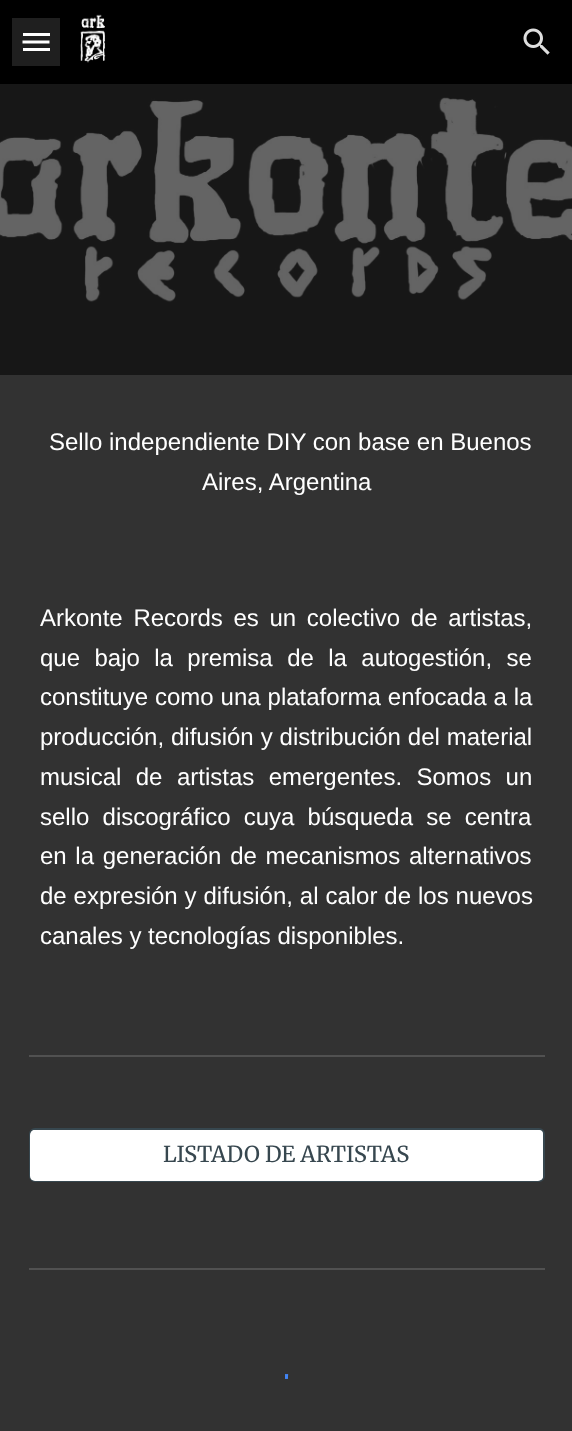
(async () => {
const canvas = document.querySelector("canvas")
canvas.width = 572
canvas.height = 1431
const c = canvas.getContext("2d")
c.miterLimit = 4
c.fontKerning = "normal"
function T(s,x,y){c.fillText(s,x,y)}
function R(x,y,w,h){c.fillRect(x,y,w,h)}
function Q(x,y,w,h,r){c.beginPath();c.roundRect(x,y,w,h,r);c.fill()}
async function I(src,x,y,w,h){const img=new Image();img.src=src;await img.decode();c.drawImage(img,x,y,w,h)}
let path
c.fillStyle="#fff"
R(0,0,572,1431)
c.fillStyle="#000"
R(0,0,572,84)
await I("1.png",80,14,26,49)
await I("2.png",523,28,27,27)
c.fillStyle="#fff"
R(23,33,27,3)
path = new Path2D("M22.5 42h27")
c.strokeStyle="#fff"
c.lineWidth=3
c.stroke(path)
R(23,48,27,3)
c.fillStyle="#ffffff1f"
R(12,18,48,48)
await I("3.png",0,84,572,291)
c.fillStyle="#323232"
R(0,375,572,1056)
c.font="24px Liberation Sans"
c.fillStyle="#fff"
T("Sello independiente DIY con base en Buenos",49,450)
T("Aires, Argentina",202,490)
c.wordSpacing="4px"
T("Arkonte Records es un colectivo de artistas,",40,626)
c.wordSpacing="7.75px"
T("que bajo la premisa de la autogestión, se",40,666)
c.wordSpacing="0.25px"
T("constituye como una plataforma enfocada a la",40,705)
T("producción, difusión y distribución del material",40,745)
c.wordSpacing="7.75px"
T("musical de artistas emergentes. Somos un",40,785)
c.wordSpacing="6.5px"
T("sello discográfico cuya búsqueda se centra",40,825)
c.wordSpacing="2px"
T("en la generación de mecanismos alternativos",40,864)
c.wordSpacing="0.25px"
T("de expresión y difusión, al calor de los nuevos",40,904)
c.wordSpacing="0px"
T("canales y tecnologías disponibles.",40,944)
c.fillStyle="#515151"
R(29,1055,516,2)
c.fillStyle="#fff"
c.beginPath()
c.roundRect(30,1129,514,52,5)
c.fill()
c.strokeStyle="#37474f"
c.lineWidth=2
c.stroke()
Q(30,1130,513,51,5)
c.font="22px Merriweather"
c.fillStyle="#37474f"
T("LISTADO DE ARTISTAS",163,1162)
c.fillStyle="#515151"
R(29,1268,516,2)
c.save()
c.beginPath()
c.rect(266,1374,21,42)
c.clip()
path = new Path2D("M285 1376.5c3.5 0 7.5 .5 10.5 2.5c16 9 11 33.5-7.5 35")
c.strokeStyle="#4284f2"
c.lineWidth=4.5
c.stroke(path)
c.restore()
c.save()
c.beginPath()
c.rect(285,1374,3,42)
c.clip()
path = new Path2D("M273 1408.5c-4-4.5-6-11-5-17c4.5-22 37.5-19 37 3.5c0 5-1.5 10-5 13.5")
c.strokeStyle="#4284f2"
c.lineWidth=4.5
c.stroke(path)
c.restore()
c.save()
c.beginPath()
c.rect(287,1374,21,42)
c.clip()
path = new Path2D("M285 1414c-4 0-7.5-1.5-10-4c-14.5-11.5-5-35 13-33.5")
c.strokeStyle="#4284f2"
c.lineWidth=4.5
c.stroke(path)
c.restore()
})()
